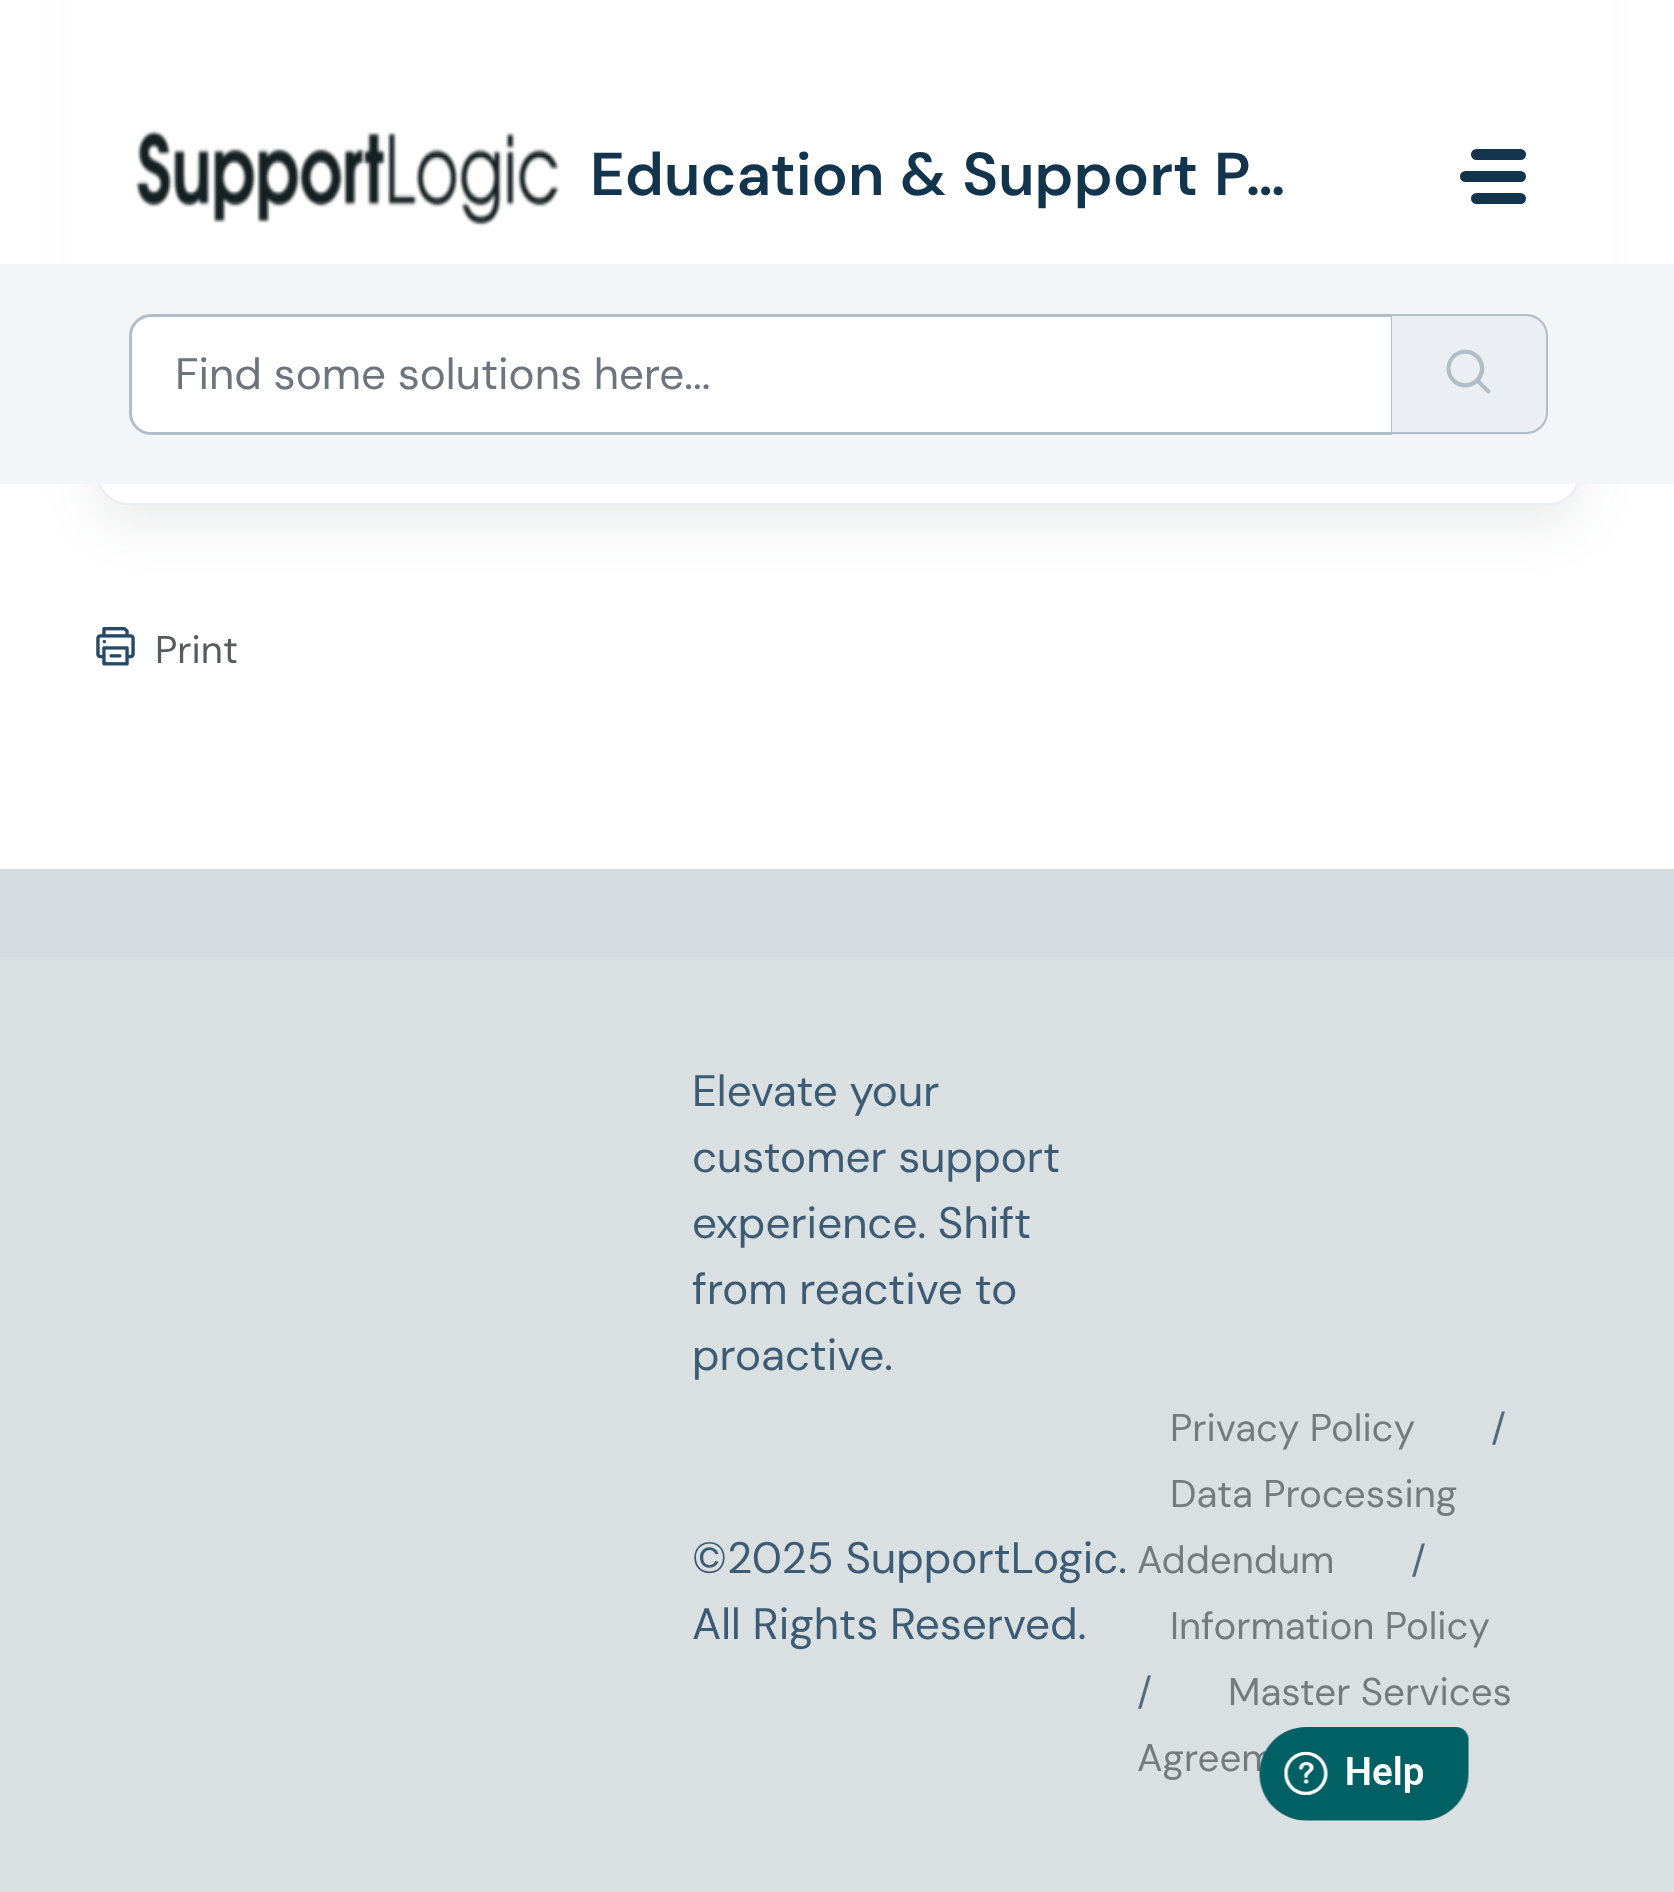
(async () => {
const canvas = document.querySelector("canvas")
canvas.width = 1674
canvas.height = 1892
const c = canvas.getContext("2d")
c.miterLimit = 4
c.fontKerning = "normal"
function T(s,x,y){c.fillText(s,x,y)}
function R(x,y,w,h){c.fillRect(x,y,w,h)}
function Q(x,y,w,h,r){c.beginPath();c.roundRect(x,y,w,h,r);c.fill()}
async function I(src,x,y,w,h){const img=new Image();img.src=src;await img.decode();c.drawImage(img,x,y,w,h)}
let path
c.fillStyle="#fff"
R(0,0,1674,1892)
c.save()
path = new Path2D("M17 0h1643v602h-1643zm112-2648h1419c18 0 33 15 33 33v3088c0 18-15 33-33 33h-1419c-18 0-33-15-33-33v-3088c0-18 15-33 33-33z")
c.clip(path,"evenodd")
c.fillStyle="#27313a1a"
c.filter="blur(26px)"
c.beginPath()
c.roundRect(96,-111,1485,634,33)
c.fill()
c.filter="none"
c.restore()
c.beginPath()
c.roundRect(97.5,-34.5,1482,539,31.5)
c.strokeStyle="#ebeff3"
c.lineWidth=3
c.stroke()
R(65,0,1547,264)
await I("1.png",135,130,425,97)
c.wordSpacing="1px"
c.font="600 60.5px DM Sans"
c.fillStyle="#12344d"
T("Education & Support P…",590,195)
Q(1471,149,55,11,5.5)
Q(1460,171,66,11,5.5)
Q(1471,193,55,11,5.5)
c.fillStyle="#f3f6f9"
R(0,264,1674,220)
c.fillStyle="#fff"
c.beginPath()
c.roundRect(130.5,315.5,1262,118,[20.5,0,0,20.5])
c.fill()
c.strokeStyle="#b1bdc8"
c.stroke()
c.wordSpacing="0px"
c.font="44px 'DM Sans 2'"
c.fillStyle="#6c757d"
T("Find some solutions here...",175,389)
c.fillStyle="#ebeff3"
c.beginPath()
c.roundRect(1392,314,156,121,[0,22,22,0])
c.fill()
c.fillStyle="#b1bdc8"
path = new Path2D("M1392 314h134c12 0 22 9 22 22v76c0 13-10 22-22 22h-134zm0 2h134c11 0 20 9 20 20v76c0 11-9 20-20 20h-134z")
c.fill(path,"evenodd")
await I("2.png",1446,349,45,45)
await I("3.png",96,627,39,39)
c.font="38.5px DM Sans"
c.fillStyle="#555c5d"
T("Print",155,663)
c.fillStyle="#d6dbdf"
R(0,869,1674,88)
c.fillStyle="#dadfe2"
R(0,957,1674,935)
c.font="44px 'DM Sans 2'"
c.fillStyle="#3c5b75"
T("Elevate your",692,1106)
T("customer support",692,1172)
T("experience. Shift",692,1238)
T("from reactive to",692,1304)
T("proactive.",692,1370)
T("©2025 SupportLogic.",692,1573)
T("All Rights Reserved.",692,1639)
c.font="38.5px DM Sans"
c.fillStyle="#757b7c"
T("Privacy Policy",1170,1441)
c.fillStyle="#4f6c83"
T("/",1491,1441)
c.fillStyle="#757b7c"
T("Data Processing",1170,1507)
T("Addendum",1137,1573)
c.fillStyle="#4f6c83"
T("/",1411,1573)
c.fillStyle="#757b7c"
T("Information Policy",1170,1639)
c.fillStyle="#4f6c83"
T("/",1137,1705)
c.fillStyle="#757b7c"
T("Master Services",1228,1705)
T("Agreem",1137,1771)
await I("4.png",1259,1727,210,94)
})()
